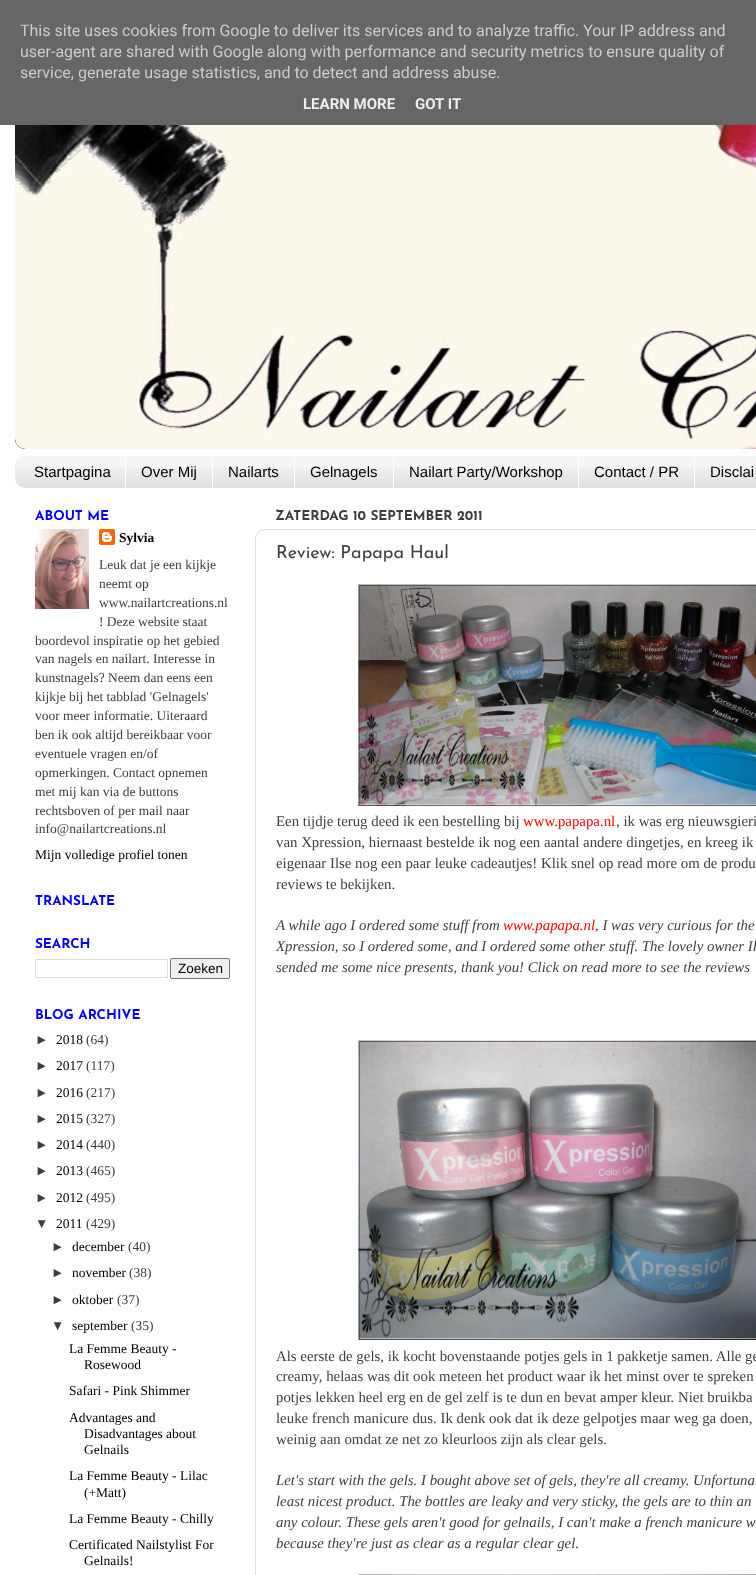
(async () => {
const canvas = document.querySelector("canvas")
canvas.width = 756
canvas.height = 1575
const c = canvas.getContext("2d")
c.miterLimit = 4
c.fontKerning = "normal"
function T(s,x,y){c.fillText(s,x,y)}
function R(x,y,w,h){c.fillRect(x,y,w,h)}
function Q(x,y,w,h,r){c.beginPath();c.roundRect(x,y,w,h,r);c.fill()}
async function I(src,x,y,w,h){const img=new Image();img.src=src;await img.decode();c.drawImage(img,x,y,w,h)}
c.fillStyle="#fff"
R(0,0,756,1575)
c.fillStyle="#000"
Q(15,75,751,374,10)
c.fillStyle="#666"
R(0,0,756,125)
c.font="16px Roboto"
c.fillStyle="#ccc"
T("This site uses cookies from Google to deliver its services and to analyze traffic. Your IP address and",20,36)
T("user-agent are shared with Google along with performance and security metrics to ensure quality of",20,57)
T("service, generate usage statistics, and to detect and address abuse.",20,78)
c.font="bold 15px Roboto"
c.fillStyle="#eee"
T("LEARN MORE",303,109)
T("GOT IT",415,109)
await I("1.png",15,125,741,324)
c.fillStyle="#f5f5f5"
Q(15,456,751,32,10)
await I("2.png",15,467,741,21)
c.fillStyle="#fff"
R(125,456,1,32)
c.font="15px Liberation Sans"
c.fillStyle="#000"
T("Startpagina",34,477)
c.fillStyle="#fff"
R(212,456,1,32)
c.fillStyle="#000"
T("Over Mij",141,477)
c.fillStyle="#fff"
R(294,456,1,32)
c.fillStyle="#000"
T("Nailarts",228,477)
c.fillStyle="#fff"
R(393,456,1,32)
c.fillStyle="#000"
T("Gelnagels",310,477)
c.fillStyle="#fff"
R(578,456,1,32)
c.fillStyle="#000"
T("Nailart Party/Workshop",409,477)
c.fillStyle="#fff"
R(694,456,1,32)
c.fillStyle="#000"
T("Contact / PR",594,477)
T("Disclai",710,477)
c.font="bold 13.5px Josefin Sans"
c.fillStyle="#00f"
T("ABOUT ME",35,520)
await I("3.png",35,529,54,80)
await I("4.png",99,529,16,16)
c.font="bold 13.5px Liberation Serif"
c.fillStyle="#000"
T("Sylvia",119,542)
c.font="13.5px Liberation Serif"
c.fillStyle="#3e3e3e"
T("Leuk dat je een kijkje",99,569)
T("neemt op",99,588)
T("www.nailartcreations.nl",99,607)
T("! Deze website staat",99,626)
T("boordevol inspiratie op het gebied",35,645)
T("van nagels en nailart. Interesse in",35,663)
T("kunstnagels? Neem dan eens een",35,682)
T("kijkje bij het tabblad 'Gelnagels'",35,701)
T("voor meer informatie. Uiteraard",35,720)
T("ben ik ook altijd bereikbaar voor",35,739)
T("eventuele vragen en/of",35,758)
T("opmerkingen. Contact opnemen",35,777)
T("met mij kan via de buttons",35,796)
T("rechtsboven of per mail naar",35,815)
T("info@nailartcreations.nl",35,833)
c.fillStyle="#000"
T("Mijn volledige profiel tonen",35,859)
c.font="bold 13.5px Josefin Sans"
c.fillStyle="#00f"
T("TRANSLATE",35,905)
T("SEARCH",35,948)
c.strokeStyle="#ddd"
c.strokeRect(35.5,959.5,132,18)
c.fillStyle="#efefef"
c.beginPath()
c.roundRect(170.5,958.5,59,20,1.5)
c.fill()
c.strokeStyle="#767676"
c.stroke()
c.font="13.5px Liberation Sans"
c.fillStyle="#000"
T("Zoeken",178,973)
c.font="bold 13.5px Josefin Sans"
c.fillStyle="#00f"
T("BLOG ARCHIVE",35,1019)
c.font="13.5px Liberation Sans"
c.fillStyle="#3e3e3e"
T("►",35,1044)
c.font="13.5px Liberation Serif"
c.fillStyle="#000"
T("2018",56,1044)
c.fillStyle="#3e3e3e"
T("(64)",86,1044)
c.font="13.5px Liberation Sans"
T("►",35,1070)
c.font="13.5px Liberation Serif"
c.fillStyle="#000"
T("2017",56,1070)
c.fillStyle="#3e3e3e"
T("(117)",86,1070)
c.font="13.5px Liberation Sans"
T("►",35,1097)
c.font="13.5px Liberation Serif"
c.fillStyle="#000"
T("2016",56,1097)
c.fillStyle="#3e3e3e"
T("(217)",86,1097)
c.font="13.5px Liberation Sans"
T("►",35,1123)
c.font="13.5px Liberation Serif"
c.fillStyle="#000"
T("2015",56,1123)
c.fillStyle="#3e3e3e"
T("(327)",86,1123)
c.font="13.5px Liberation Sans"
T("►",35,1149)
c.font="13.5px Liberation Serif"
c.fillStyle="#000"
T("2014",56,1149)
c.fillStyle="#3e3e3e"
T("(440)",86,1149)
c.font="13.5px Liberation Sans"
T("►",35,1175)
c.font="13.5px Liberation Serif"
c.fillStyle="#000"
T("2013",56,1175)
c.fillStyle="#3e3e3e"
T("(465)",86,1175)
c.font="13.5px Liberation Sans"
T("►",35,1202)
c.font="13.5px Liberation Serif"
c.fillStyle="#000"
T("2012",56,1202)
c.fillStyle="#3e3e3e"
T("(495)",86,1202)
c.font="13.5px Liberation Sans"
T("▼",35,1228)
c.font="13.5px Liberation Serif"
c.fillStyle="#000"
T("2011",56,1228)
c.fillStyle="#3e3e3e"
T("(429)",86,1228)
c.font="13.5px Liberation Sans"
T("►",51,1251)
c.font="13.5px Liberation Serif"
c.fillStyle="#000"
T("december",72,1251)
c.fillStyle="#3e3e3e"
T("(40)",128,1251)
c.font="13.5px Liberation Sans"
T("►",51,1277)
c.font="13.5px Liberation Serif"
c.fillStyle="#000"
T("november",72,1277)
c.fillStyle="#3e3e3e"
T("(38)",129,1277)
c.font="13.5px Liberation Sans"
T("►",51,1304)
c.font="13.5px Liberation Serif"
c.fillStyle="#000"
T("oktober",72,1304)
c.fillStyle="#3e3e3e"
T("(37)",117,1304)
c.font="13.5px Liberation Sans"
T("▼",51,1330)
c.font="13.5px Liberation Serif"
c.fillStyle="#000"
T("september",72,1330)
c.fillStyle="#3e3e3e"
T("(35)",131,1330)
c.fillStyle="#000"
T("La Femme Beauty -",69,1353)
T("Rosewood",84,1369)
T("Safari - Pink Shimmer",69,1395)
T("Advantages and",69,1422)
T("Disadvantages about",84,1438)
T("Gelnails",84,1454)
T("La Femme Beauty - Lilac",69,1480)
T("(+Matt)",84,1497)
T("La Femme Beauty - Chilly",69,1523)
T("Certificated Nailstylist For",69,1549)
T("Gelnails!",84,1565)
c.font="bold 13.5px Josefin Sans"
c.fillStyle="#3e3e3e"
T("ZATERDAG 10 SEPTEMBER 2011",275,520)
c.beginPath()
c.roundRect(255.5,529.5,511,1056,9.5)
c.strokeStyle="#ddd"
c.stroke()
c.font="18px Josefin Sans"
T("Review: Papapa Haul",276,558)
await I("5.png",358,584,398,222)
c.font="14.85px Liberation Serif"
T("Een tijdje terug deed ik een bestelling bij",276,826)
c.fillStyle="#f00"
T("www.papapa.nl",523,826)
c.fillStyle="#3e3e3e"
T(", ik was erg nieuwsgieri",616,826)
T("van Xpression, hiernaast bestelde ik nog een aantal andere dingetjes, en kreeg ik",276,847)
T("eigenaar Ilse nog een paar leuke cadeautjes! Klik snel op read more om de produ",276,868)
T("reviews te bekijken.",276,889)
c.font="italic 14.85px Liberation Serif"
T("A while ago I ordered some stuff from",276,930)
c.fillStyle="#f00"
T("www.papapa.nl",503,930)
c.fillStyle="#3e3e3e"
T(", I was very curious for the",595,930)
T("Xpression, so I ordered some, and I ordered some other stuff. The lovely owner Il",276,951)
T("sended me some nice presents, thank you! Click on read more to see the reviews",276,972)
await I("6.png",358,1040,398,300)
c.font="14.85px Liberation Serif"
T("Als eerste de gels, ik kocht bovenstaande potjes gels in 1 pakketje samen. Alle ge",276,1361)
T("creamy, helaas was dit ook meteen het product waar ik het minst over te spreken",276,1381)
T("potjes lekken heel erg en de gel zelf is te dun en bevat amper kleur. Niet bruikba",276,1402)
T("leuke french manicure dus. Ik denk ook dat ik deze gelpotjes maar weg ga doen,",276,1423)
T("weinig aan omdat ze net zo kleurloos zijn als clear gels.",276,1444)
c.font="italic 14.85px Liberation Serif"
T("Let's start with the gels. I bought above set of gels, they're all creamy. Unfortuna",276,1485)
T("least nicest product. The bottles are leaky and very sticky, the gels are to thin an",276,1506)
T("any colour. These gels aren't good for gelnails, I can't make a french manicure w",276,1527)
T("because they're just as clear as a regular clear gel",276,1548)
c.font="14.85px Liberation Serif"
T(".",575,1548)
await I("7.png",358,1574,398,1)
})()
